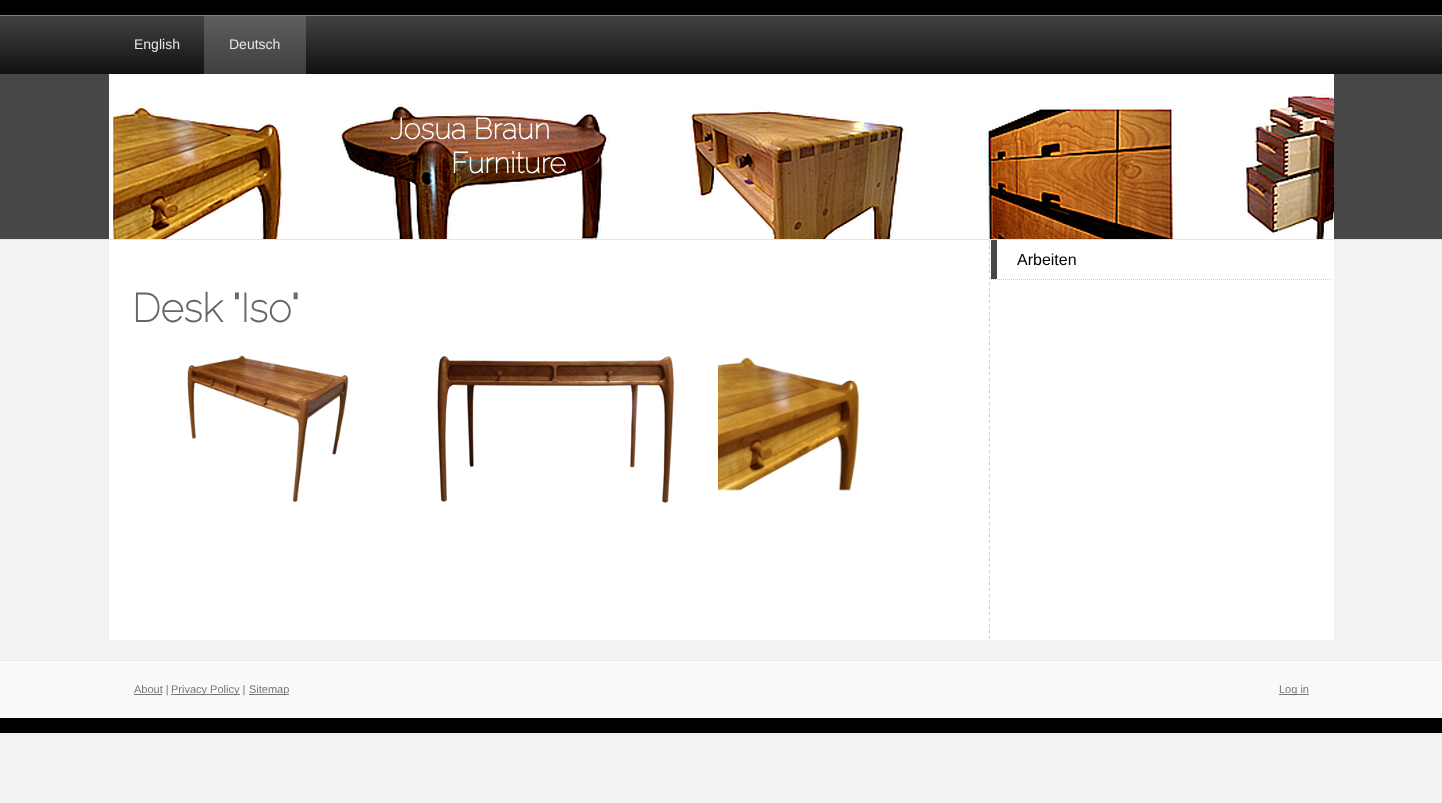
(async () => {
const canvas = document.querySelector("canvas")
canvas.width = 1442
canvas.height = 803
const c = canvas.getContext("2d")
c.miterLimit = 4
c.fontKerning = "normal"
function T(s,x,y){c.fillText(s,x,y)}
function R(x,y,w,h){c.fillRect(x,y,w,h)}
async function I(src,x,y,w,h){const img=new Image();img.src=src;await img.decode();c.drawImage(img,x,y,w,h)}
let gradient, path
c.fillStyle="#f1f2f3"
R(0,0,1442,803)
c.fillStyle="#000"
R(0,0,1442,15)
c.fillStyle="#808080"
R(0,15,1442,1)
gradient = c.createLinearGradient(721,16,721,74)
gradient.addColorStop(0,"#424242")
gradient.addColorStop(1,"#111")
c.fillStyle = gradient
R(0,16,1442,58)
c.font="14px Liberation Sans"
c.fillStyle="#e6e6e6"
T("English",134,49)
gradient = c.createLinearGradient(255,16,255,74)
gradient.addColorStop(0,"#5e5e5e")
gradient.addColorStop(1,"#3f3f3f")
c.fillStyle = gradient
R(204,16,102,58)
c.fillStyle="#e6e6e6"
T("Deutsch",229,49)
c.fillStyle="#474747"
R(0,74,1442,165)
c.fillStyle="#e6e6e6"
R(0,239,1442,1)
await I("1.png",109,74,1225,165)
c.font="bold 29px Raleway"
c.fillStyle="#fff"
T("Josua Braun",390,139)
T("Furniture",451,173)
c.fillStyle="#e6e6e6"
R(0,660,1442,1)
c.fillStyle="#fff"
R(109,240,1225,400)
await I("2.png",989,240,1,399)
path = new Path2D("M991 279.5h340")
c.strokeStyle="#ccc"
c.setLineDash([1,1])
c.stroke(path)
c.fillStyle="#474747"
R(991,240,6,39)
c.font="16px Liberation Sans"
c.fillStyle="#000"
T("Arbeiten",1017,265)
c.font="bold 40px Raleway"
c.fillStyle="#666"
T("Desk \"Iso\"",132,322)
await I("3.png",187,355,162,147)
await I("4.png",437,356,237,147)
await I("5.png",718,357,142,134)
c.fillStyle="#f9f9f9"
R(0,662,1442,56)
c.fillStyle="#fff"
R(0,661,1442,1)
c.fillStyle="#777"
R(134,694,28,1)
c.font="11px Liberation Sans"
T("About |",134,693)
R(171,694,69,1)
T("Privacy Policy |",171,693)
R(249,694,40,1)
T("Sitemap",249,693)
R(1279,694,30,1)
T("Log in",1279,693)
c.fillStyle="#000"
R(0,718,1442,15)
})()
